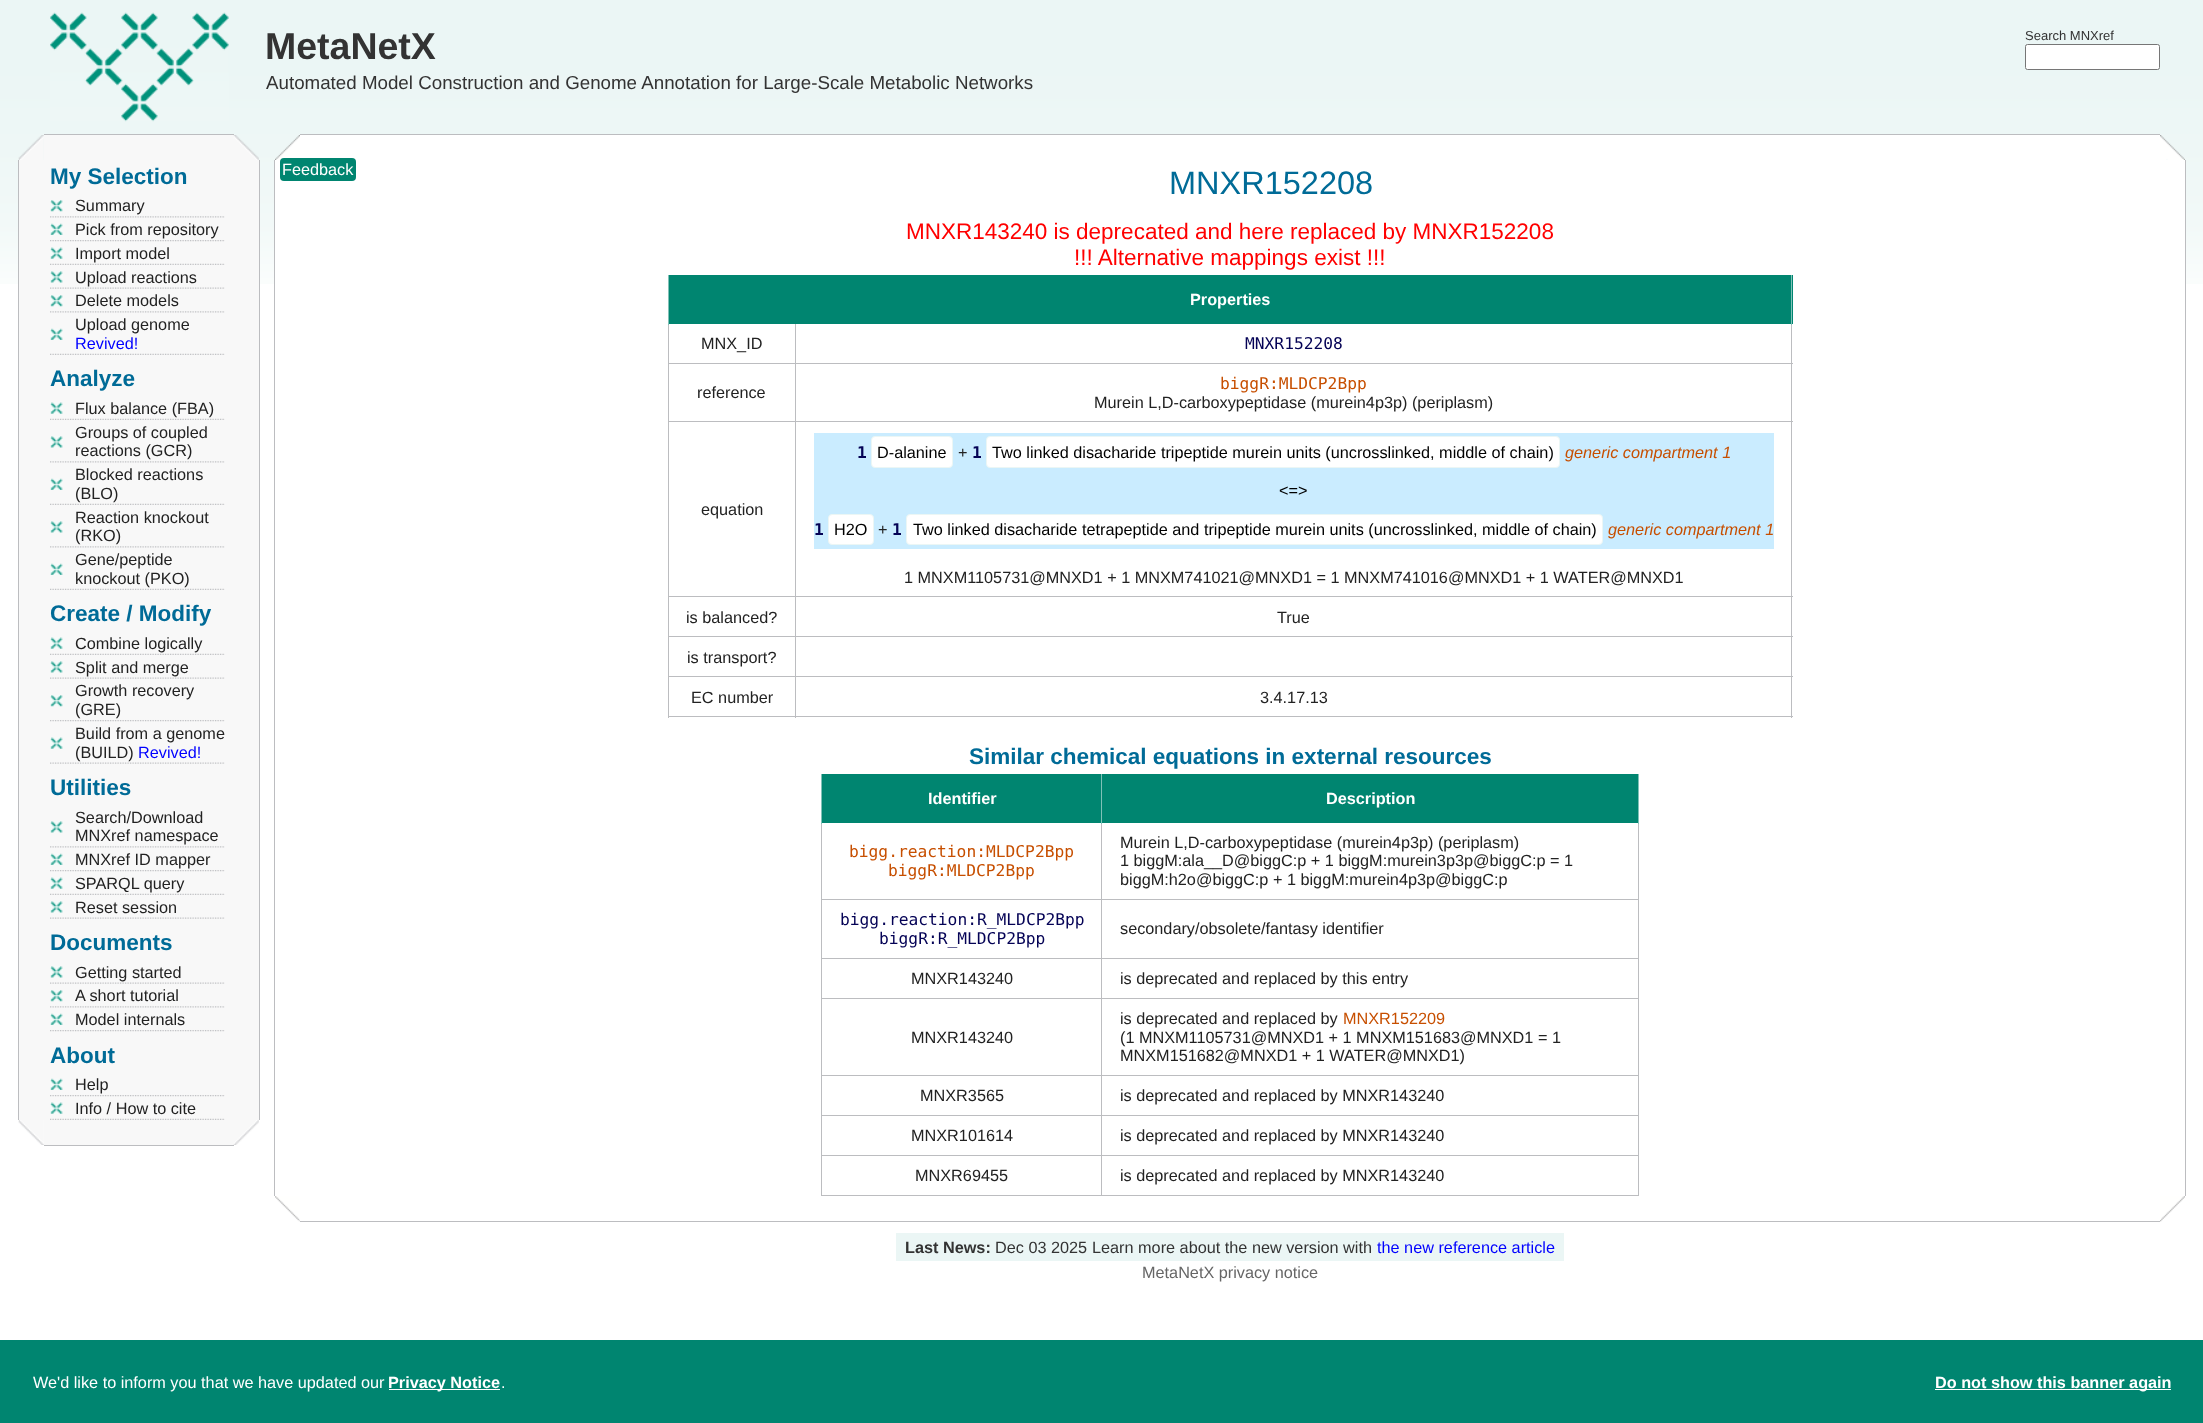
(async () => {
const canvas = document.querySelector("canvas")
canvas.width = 2203
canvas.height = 1423
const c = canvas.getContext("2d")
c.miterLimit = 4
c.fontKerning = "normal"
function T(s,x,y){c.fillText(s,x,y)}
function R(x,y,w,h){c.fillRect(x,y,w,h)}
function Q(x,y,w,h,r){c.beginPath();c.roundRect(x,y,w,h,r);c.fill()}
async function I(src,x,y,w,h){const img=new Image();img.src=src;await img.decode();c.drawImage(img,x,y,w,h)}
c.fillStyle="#fff"
R(0,0,2203,1423)
await I("1.png",0,0,2203,284)
await I("2.png",50,12,179,110)
c.font="bold 37.5px Liberation Sans"
c.fillStyle="#333"
T("MetaNetX",265,59)
c.font="18.75px Liberation Sans"
T("Automated Model Construction and Genome Annotation for Large-Scale Metabolic Networks",266,89)
c.font="13px Liberation Sans"
T("Search MNXref",2025,40)
c.fillStyle="#fff"
c.beginPath()
c.roundRect(2025.5,44.5,134,25,2)
c.fill()
c.strokeStyle="#767676"
c.stroke()
c.fillStyle="#f8f8f8"
R(44,135,190,25)
c.fillStyle="#bcbdc0"
R(44,134,190,1)
await I("3.png",18,135,26,25)
await I("4.png",233,135,26,25)
c.fillStyle="#f8f8f8"
R(19,160,240,960)
c.fillStyle="#bcbdc0"
R(259,160,1,960)
R(18,160,1,960)
c.font="bold 22.5px Liberation Sans"
c.fillStyle="#006b97"
T("My Selection",50,184)
await I("5.png",50,216,175,2)
await I("6.png",50,200,13,12)
c.font="16.25px Liberation Sans"
c.fillStyle="#222"
T("Summary",75,211)
await I("7.png",50,240,175,2)
await I("8.png",50,223,13,12)
T("Pick from repository",75,235)
await I("9.png",50,263,175,2)
await I("10.png",50,247,13,12)
T("Import model",75,259)
await I("11.png",50,287,175,2)
await I("12.png",50,271,13,12)
T("Upload reactions",75,283)
await I("5.png",50,311,175,2)
await I("6.png",50,295,13,12)
T("Delete models",75,306)
await I("9.png",50,353,175,2)
await I("8.png",50,328,13,12)
T("Upload genome",75,330)
c.fillStyle="#00f"
T("Revived!",75,349)
c.font="bold 22.5px Liberation Sans"
c.fillStyle="#006b97"
T("Analyze",50,386)
await I("9.png",50,418,175,2)
await I("10.png",50,402,13,12)
c.font="16.25px Liberation Sans"
c.fillStyle="#222"
T("Flux balance (FBA)",75,414)
await I("5.png",50,461,175,2)
await I("12.png",50,436,13,12)
T("Groups of coupled",75,438)
T("reactions (GCR)",75,456)
await I("9.png",50,503,175,2)
await I("8.png",50,478,13,12)
T("Blocked reactions",75,480)
T("(BLO)",75,499)
await I("5.png",50,546,175,2)
await I("12.png",50,521,13,12)
T("Reaction knockout",75,523)
T("(RKO)",75,541)
await I("9.png",50,588,175,2)
await I("8.png",50,563,13,12)
T("Gene/peptide",75,565)
T("knockout (PKO)",75,584)
c.font="bold 22.5px Liberation Sans"
c.fillStyle="#006b97"
T("Create / Modify",50,621)
await I("9.png",50,653,175,2)
await I("10.png",50,637,13,12)
c.font="16.25px Liberation Sans"
c.fillStyle="#222"
T("Combine logically",75,649)
await I("11.png",50,677,175,2)
await I("12.png",50,661,13,12)
T("Split and merge",75,673)
await I("7.png",50,720,175,2)
await I("6.png",50,695,13,12)
T("Growth recovery",75,696)
T("(GRE)",75,715)
await I("11.png",50,762,175,2)
await I("10.png",50,737,13,12)
T("Build from a genome",75,739)
T("(BUILD)",75,758)
c.fillStyle="#00f"
T("Revived!",138,758)
c.font="bold 22.5px Liberation Sans"
c.fillStyle="#006b97"
T("Utilities",50,795)
await I("5.png",50,846,175,2)
await I("12.png",50,821,13,12)
c.font="16.25px Liberation Sans"
c.fillStyle="#222"
T("Search/Download",75,823)
T("MNXref namespace",75,841)
await I("7.png",50,870,175,2)
await I("8.png",50,853,13,12)
T("MNXref ID mapper",75,865)
await I("9.png",50,893,175,2)
await I("10.png",50,877,13,12)
T("SPARQL query",75,889)
await I("11.png",50,917,175,2)
await I("12.png",50,901,13,12)
T("Reset session",75,913)
c.font="bold 22.5px Liberation Sans"
c.fillStyle="#006b97"
T("Documents",50,950)
await I("11.png",50,982,175,2)
await I("12.png",50,966,13,12)
c.font="16.25px Liberation Sans"
c.fillStyle="#222"
T("Getting started",75,978)
await I("5.png",50,1006,175,2)
await I("6.png",50,990,13,12)
T("A short tutorial",75,1001)
await I("7.png",50,1030,175,2)
await I("8.png",50,1013,13,12)
T("Model internals",75,1025)
c.font="bold 22.5px Liberation Sans"
c.fillStyle="#006b97"
T("About",50,1063)
await I("7.png",50,1095,175,2)
await I("8.png",50,1078,13,12)
c.font="16.25px Liberation Sans"
c.fillStyle="#222"
T("Help",75,1090)
await I("9.png",50,1118,175,2)
await I("10.png",50,1102,13,12)
T("Info / How to cite",75,1114)
c.fillStyle="#f8f8f8"
R(44,1120,190,25)
c.fillStyle="#bcbdc0"
R(44,1145,190,1)
await I("13.png",18,1120,26,25)
await I("14.png",233,1120,26,25)
c.fillStyle="#fff"
R(300,135,1860,25)
c.fillStyle="#bcbdc0"
R(300,134,1860,1)
await I("15.png",275,135,25,25)
await I("16.png",2160,135,25,25)
c.fillStyle="#fff"
R(275,160,1910,124)
c.fillStyle="#bcbdc0"
R(2185,160,1,1036)
R(274,160,1,1036)
c.fillStyle="#008570"
Q(280,158,76,23,4)
c.fillStyle="#fff"
T("Feedback",282,175)
c.font="32.5px Liberation Sans"
c.fillStyle="#006b97"
T("MNXR152208",1169,194)
c.font="22.5px Liberation Sans"
c.fillStyle="#f00"
T("MNXR143240 is deprecated and here replaced by MNXR152208",906,239)
T("!!! Alternative mappings exist !!!",1074,265)
c.fillStyle="#008570"
R(669,275,1124,49)
c.fillStyle="#bcbdc0"
R(1791,324,1,394)
c.fillStyle="#80c1b7"
R(1791,275,1,50)
c.fillStyle="#bcbdc0"
R(795,716,998,1)
R(795,676,1,42)
R(795,676,998,1)
R(795,636,1,42)
R(795,636,998,1)
R(795,596,1,42)
R(795,596,998,1)
R(795,421,1,177)
R(795,421,998,1)
R(795,363,1,60)
R(795,363,998,1)
R(795,324,1,40)
R(668,716,128,1)
R(668,676,1,42)
R(668,676,128,1)
R(668,636,1,42)
R(668,636,128,1)
R(668,596,1,42)
R(668,596,128,1)
R(668,421,1,177)
R(668,421,128,1)
R(668,363,1,60)
R(668,363,128,1)
R(668,324,1,40)
c.fillStyle="#80c1b7"
R(668,275,1,50)
c.font="bold 16.25px Liberation Sans"
c.fillStyle="#fff"
T("Properties",1190,305)
c.font="16.25px Liberation Sans"
c.fillStyle="#222"
T("MNX_ID",701,349)
c.font="16.25px DejaVu Sans Mono"
c.fillStyle="#040255"
T("MNXR152208",1245,349)
c.font="16.25px Liberation Sans"
c.fillStyle="#222"
T("reference",697,398)
c.font="16.25px DejaVu Sans Mono"
c.fillStyle="#c74f00"
T("biggR:MLDCP2Bpp",1220,389)
c.font="16.25px Liberation Sans"
c.fillStyle="#222"
T("Murein L,D-carboxypeptidase (murein4p3p) (periplasm)",1094,408)
T("equation",701,515)
c.fillStyle="#caecff"
R(814,433,960,116)
c.font="bold 16.25px DejaVu Sans Mono"
c.fillStyle="#040255"
T("1",857,458)
c.fillStyle="#fff"
c.beginPath()
c.roundRect(871.5,436.5,81,31,3.5)
c.fill()
c.strokeStyle="#ebf6f5"
c.stroke()
c.font="16.25px Liberation Sans"
c.fillStyle="#000"
T("D-alanine",877,458)
c.fillStyle="#222"
T("+",958,458)
c.font="bold 16.25px DejaVu Sans Mono"
c.fillStyle="#040255"
T("1",972,458)
c.fillStyle="#fff"
c.beginPath()
c.roundRect(986.5,436.5,573,31,3.5)
c.fill()
c.stroke()
c.font="16.25px Liberation Sans"
c.fillStyle="#000"
T("Two linked disacharide tripeptide murein units (uncrosslinked, middle of chain)",992,458)
c.font="italic 16.25px Liberation Sans"
c.fillStyle="#c74f00"
T("generic compartment 1",1565,458)
c.font="16.25px Liberation Sans"
c.fillStyle="#000"
T("<=>",1279,496)
c.font="bold 16.25px DejaVu Sans Mono"
c.fillStyle="#040255"
T("1",814,535)
c.fillStyle="#fff"
c.beginPath()
c.roundRect(828.5,514.5,45,30,3.5)
c.fill()
c.stroke()
c.font="16.25px Liberation Sans"
c.fillStyle="#000"
T("H2O",834,535)
c.fillStyle="#222"
T("+",878,535)
c.font="bold 16.25px DejaVu Sans Mono"
c.fillStyle="#040255"
T("1",892,535)
c.fillStyle="#fff"
c.beginPath()
c.roundRect(906.5,514.5,696,30,3.5)
c.fill()
c.stroke()
c.font="16.25px Liberation Sans"
c.fillStyle="#000"
T("Two linked disacharide tetrapeptide and tripeptide murein units (uncrosslinked, middle of chain)",913,535)
c.font="italic 16.25px Liberation Sans"
c.fillStyle="#c74f00"
T("generic compartment 1",1608,535)
c.font="16.25px Liberation Sans"
c.fillStyle="#222"
T("1 MNXM1105731@MNXD1 + 1 MNXM741021@MNXD1 = 1 MNXM741016@MNXD1 + 1 WATER@MNXD1",904,583)
T("is balanced?",686,623)
T("True",1277,623)
T("is transport?",687,663)
T("EC number",691,703)
T("3.4.17.13",1260,703)
c.font="bold 22.5px Liberation Sans"
c.fillStyle="#006b97"
T("Similar chemical equations in external resources",969,764)
c.fillStyle="#008570"
R(822,774,816,49)
c.fillStyle="#bcbdc0"
R(1638,823,1,373)
R(1101,1195,538,1)
R(1101,1155,1,41)
R(1101,1155,538,1)
R(1101,1115,1,41)
R(1101,1115,538,1)
R(1101,1075,1,41)
R(1101,1075,538,1)
R(1101,998,1,78)
R(1101,998,538,1)
R(1101,958,1,41)
R(1101,958,538,1)
R(1101,899,1,60)
R(1101,899,538,1)
R(1101,823,1,77)
R(821,1195,282,1)
R(821,1155,1,41)
R(821,1155,282,1)
R(821,1115,1,41)
R(821,1115,282,1)
R(821,1075,1,41)
R(821,1075,282,1)
R(821,998,1,78)
R(821,998,282,1)
R(821,958,1,41)
R(821,958,282,1)
R(821,899,1,60)
R(821,899,282,1)
R(821,823,1,77)
c.fillStyle="#80c1b7"
R(821,774,1,50)
c.font="bold 16.25px Liberation Sans"
c.fillStyle="#fff"
T("Identifier",928,804)
c.fillStyle="#80c1b7"
R(1638,774,1,50)
R(1101,774,1,50)
c.fillStyle="#fff"
T("Description",1326,804)
c.font="16.25px DejaVu Sans Mono"
c.fillStyle="#c74f00"
T("bigg.reaction:MLDCP2Bpp",849,857)
T("biggR:MLDCP2Bpp",888,876)
c.font="16.25px Liberation Sans"
c.fillStyle="#222"
T("Murein L,D-carboxypeptidase (murein4p3p) (periplasm)",1120,848)
T("1 biggM:ala__D@biggC:p + 1 biggM:murein3p3p@biggC:p = 1",1120,866)
T("biggM:h2o@biggC:p + 1 biggM:murein4p3p@biggC:p",1120,885)
c.font="16.25px DejaVu Sans Mono"
c.fillStyle="#040255"
T("bigg.reaction:R_MLDCP2Bpp",840,925)
T("biggR:R_MLDCP2Bpp",879,944)
c.font="16.25px Liberation Sans"
c.fillStyle="#222"
T("secondary/obsolete/fantasy identifier",1120,934)
T("MNXR143240",911,984)
T("is deprecated and replaced by this entry",1120,984)
T("MNXR143240",911,1043)
T("is deprecated and replaced by",1120,1024)
c.fillStyle="#c74f00"
T("MNXR152209",1343,1024)
c.fillStyle="#222"
T("(1 MNXM1105731@MNXD1 + 1 MNXM151683@MNXD1 = 1",1120,1043)
T("MNXM151682@MNXD1 + 1 WATER@MNXD1)",1120,1061)
T("MNXR3565",920,1101)
T("is deprecated and replaced by MNXR143240",1120,1101)
T("MNXR101614",911,1141)
T("is deprecated and replaced by MNXR143240",1120,1141)
T("MNXR69455",915,1181)
T("is deprecated and replaced by MNXR143240",1120,1181)
c.fillStyle="#bcbdc0"
R(300,1221,1860,1)
await I("17.png",275,1196,25,26)
await I("18.png",2160,1196,25,26)
c.fillStyle="#ebf6f5"
R(896,1233,668,28)
c.font="bold 16.25px Liberation Sans"
c.fillStyle="#333"
T("Last News:",905,1253)
c.font="16.25px Liberation Sans"
T("Dec 03 2025",995,1253)
T("Learn more about the new version with",1092,1253)
c.fillStyle="#00f"
T("the new reference article",1377,1253)
c.fillStyle="#666"
T("MetaNetX privacy notice",1142,1278)
c.fillStyle="#008570"
R(0,1340,2203,83)
c.fillStyle="#fff"
T("We'd like to inform you that we have updated our",33,1388)
R(389,1389,111,1)
c.font="bold 16.25px Liberation Sans"
T("Privacy Notice",388,1388)
c.font="16.25px Liberation Sans"
T(".",501,1388)
R(1935,1389,236,1)
c.font="bold 16.25px Liberation Sans"
T("Do not show this banner again",1935,1388)
})()
